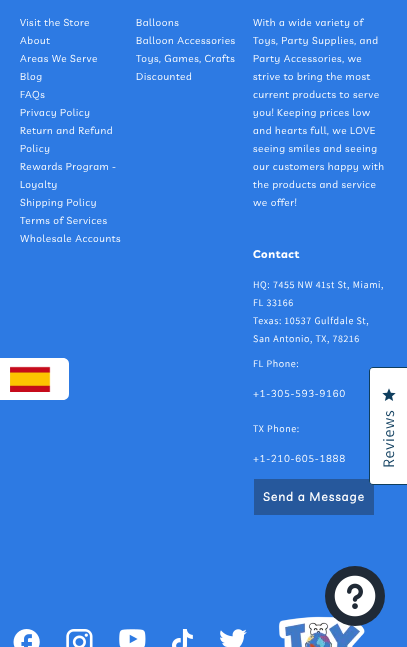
(async () => {
const canvas = document.querySelector("canvas")
canvas.width = 407
canvas.height = 647
const c = canvas.getContext("2d")
c.miterLimit = 4
c.fontKerning = "normal"
function T(s,x,y){c.fillText(s,x,y)}
function R(x,y,w,h){c.fillRect(x,y,w,h)}
async function I(src,x,y,w,h){const img=new Image();img.src=src;await img.decode();c.drawImage(img,x,y,w,h)}
let path
c.fillStyle="#2d7ae3"
R(0,0,407,647)
c.letterSpacing="0.6px"
c.font="10px Livvic"
c.fillStyle="#fff"
T("Visit the Store",20,26)
T("About",20,44)
T("Areas We Serve",20,62)
T("Blog",20,80)
T("FAQs",20,98)
T("Privacy Policy",20,116)
T("Return and Refund",20,134)
T("Policy",20,152)
T("Rewards Program -",20,170)
T("Loyalty",20,188)
T("Shipping Policy",20,206)
T("Terms of Services",20,224)
T("Wholesale Accounts",20,242)
T("Balloons",136,26)
T("Balloon Accessories",136,44)
T("Toys, Games, Crafts",136,62)
T("Discounted",136,80)
T("With a wide variety of",253,26)
T("Toys, Party Supplies, and",253,44)
T("Party Accessories, we",253,62)
T("strive to bring the most",253,80)
T("current products to serve",253,98)
T("you! Keeping prices low",253,116)
T("and hearts full, we LOVE",253,134)
T("seeing smiles and seeing",253,152)
T("our customers happy with",253,170)
T("the products and service",253,188)
T("we offer!",253,206)
c.font="bold 11px Livvic"
T("Contact",253,258)
c.font="10px Assistant"
T("HQ: 7455 NW 41st St, Miami,",253,288)
T("FL 33166",253,306)
T("Texas: 10537 Gulfdale St,",253,324)
T("San Antonio, TX, 78216",253,342)
T("FL Phone:",253,367)
c.font="10px Livvic"
T("+1-305-593-9160",253,397)
c.font="10px Assistant"
T("TX Phone:",253,432)
c.font="10px Livvic"
T("+1-210-605-1888",253,462)
c.fillStyle="#26589c"
R(254,479,120,36)
c.letterSpacing="1px"
c.font="bold 12px 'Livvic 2'"
c.fillStyle="#fff"
T("Send a Message",263,501)
await I("1.png",13,629,27,18)
await I("2.png",66,629,27,18)
await I("3.png",119,629,27,18)
await I("4.png",172,629,21,18)
await I("5.png",220,629,27,18)
await I("6.png",278,616,87,31)
path = new Path2D("M-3 358h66c3.5 0 6 2.5 6 6v30c0 3.5-2.5 6-6 6h-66z")
c.fill(path)
await I("7.png",10,366,41,26)
path = new Path2D("M373 367.5h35.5v117h-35.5c-2 0-3.5-1.5-3.5-3.5v-110c0-2 1.5-3.5 3.5-3.5z")
c.fill(path)
c.strokeStyle="#0f3e5e"
c.stroke(path)
await I("8.png",382,388,14,13)
c.letterSpacing="0.6px"
c.font="16px Assistant"
c.fillStyle="#0f3e5e"
c.save()
c.translate(394,468)
c.rotate(-89.9 * Math.PI / 180)
c.fillText("Reviews",0,0)
c.restore()
c.fillStyle="#202a36"
c.beginPath()
c.arc(355,596,30,0,7)
c.fill()
await I("9.png",334,575,42,42)
})()
